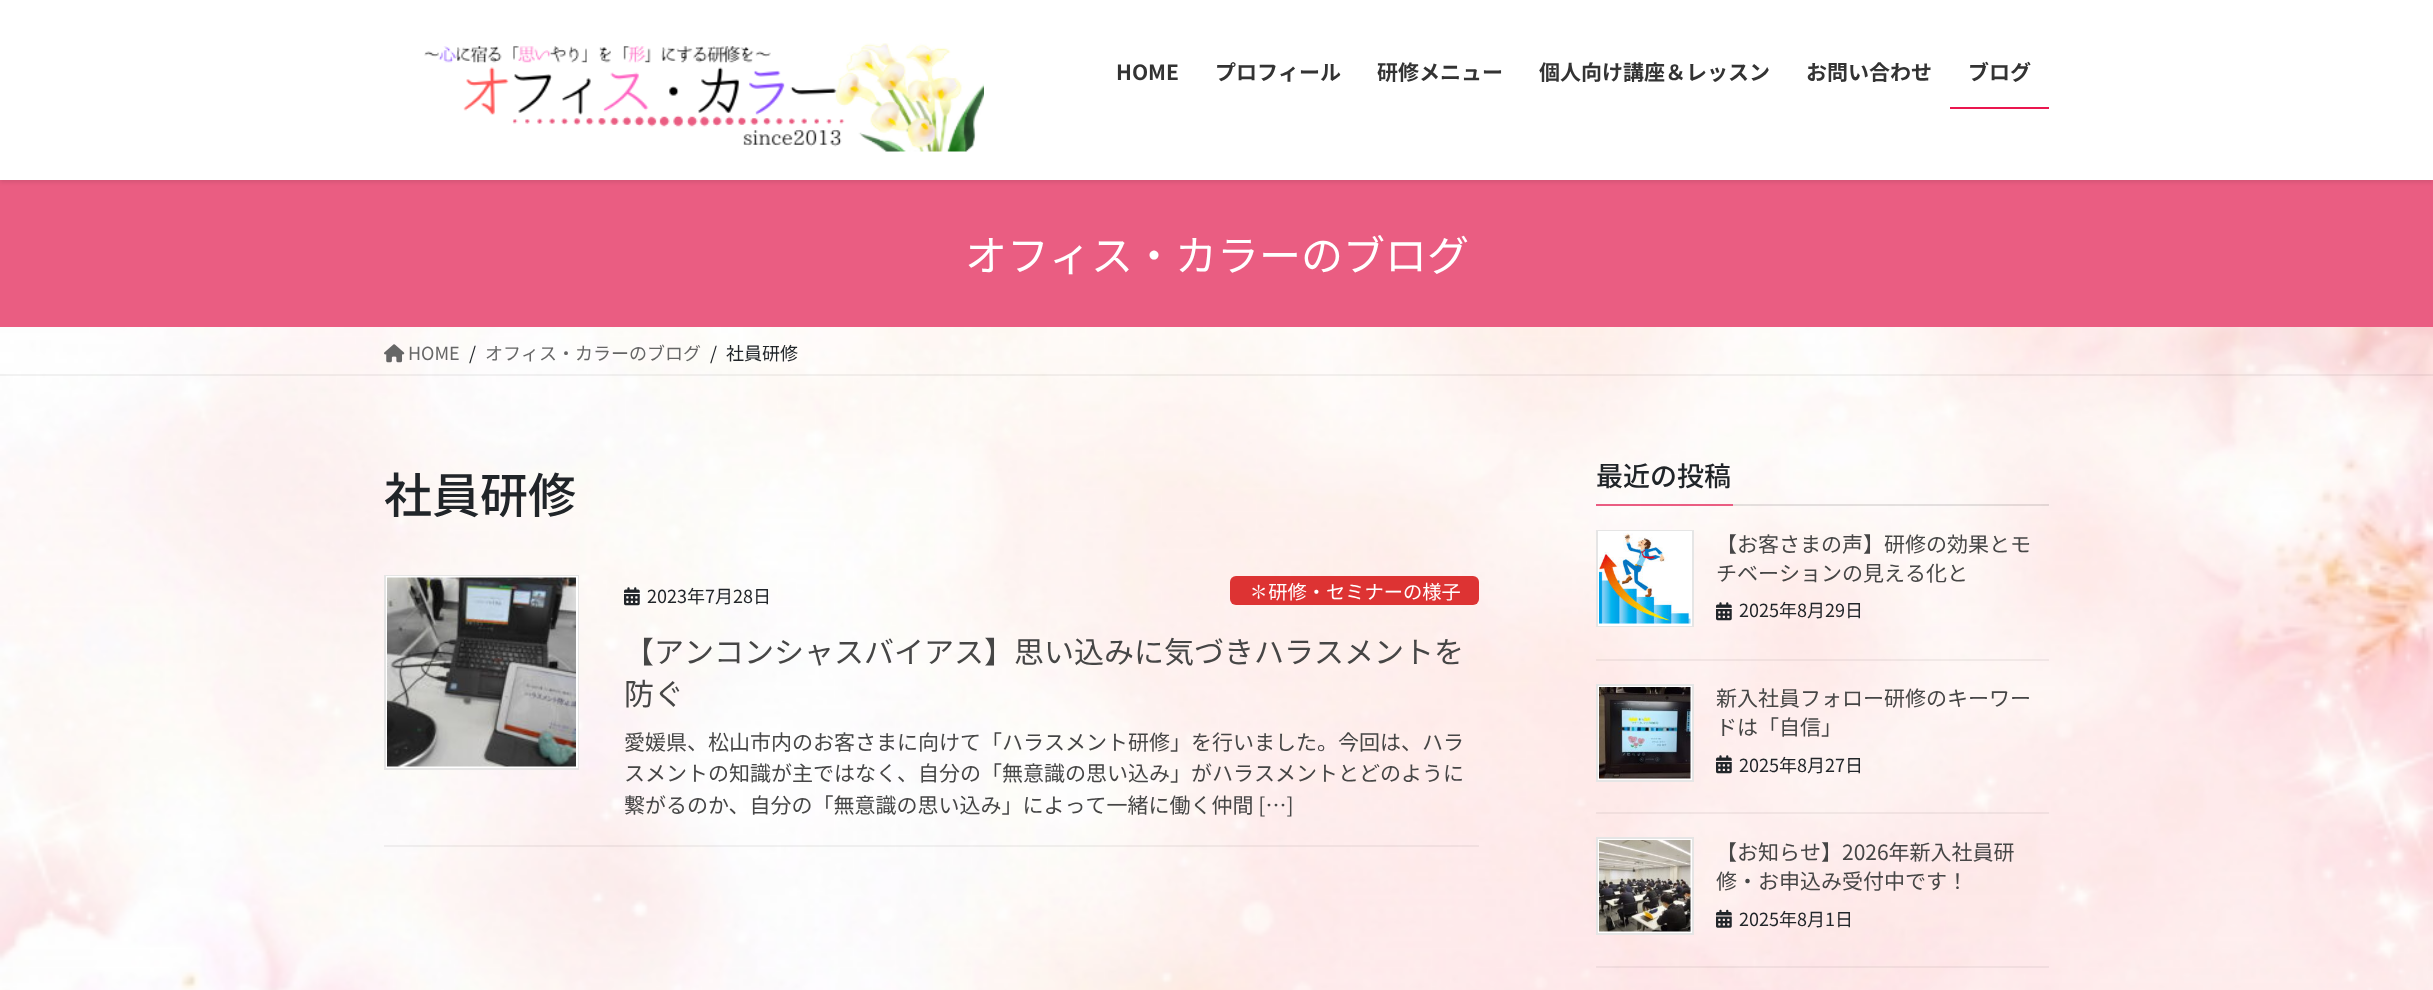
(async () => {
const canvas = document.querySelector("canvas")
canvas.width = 2433
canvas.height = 990
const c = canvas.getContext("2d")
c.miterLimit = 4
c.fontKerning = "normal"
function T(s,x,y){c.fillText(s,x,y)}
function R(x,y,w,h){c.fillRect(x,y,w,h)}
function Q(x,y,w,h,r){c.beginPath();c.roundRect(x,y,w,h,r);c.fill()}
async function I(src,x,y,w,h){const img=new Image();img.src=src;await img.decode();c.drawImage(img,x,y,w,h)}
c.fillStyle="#fff"
R(0,0,2433,990)
await I("1.png",0,327,2433,663)
c.fillStyle="#ea5d82"
R(0,180,2433,147)
c.fillStyle="#0000001a"
c.filter="blur(2px)"
c.beginPath()
c.rect(0,2,2433,180)
c.fill()
c.filter="none"
c.fillStyle="#fff"
R(0,0,2433,180)
await I("2.png",424,43,560,109)
c.font="bold 21px Noto Sans JP"
c.fillStyle="#333"
T("HOME",1116,80)
T("プロフィール",1215,80)
T("研修メニュー",1377,80)
T("個人向け講座＆レッスン",1539,80)
T("お問い合わせ",1806,80)
T("ブログ",1968,80)
c.fillStyle="#ea174f"
R(1950,107,99,2)
c.font="42px Noto Sans JP"
c.fillStyle="#fff"
T("オフィス・カラーのブログ",965,271)
c.fillStyle="#0000000d"
R(0,374,2433,2)
await I("3.png",384,344,21,19)
c.font="18px Noto Sans JP"
c.fillStyle="#666"
T("HOME",408,360)
c.fillStyle="#212529"
T("/",469,360)
c.fillStyle="#666"
T("オフィス・カラーのブログ",485,360)
c.fillStyle="#212529"
T("/",710,360)
T("社員研修",726,360)
c.font="500 48px Noto Sans JP"
T("社員研修",384,513)
c.fillStyle="#0000000d"
R(384,845,1095,2)
c.strokeStyle="#e5e5e5"
c.lineWidth=2
c.strokeRect(385,576,193,193)
c.strokeStyle="#fff"
c.strokeRect(387,577,190,190)
await I("4.png",387,577,189,190)
await I("5.png",624,587,16,19)
c.font="18px Noto Sans JP"
c.fillStyle="#212529"
T("2023年7月28日",647,603)
c.fillStyle="#d33"
Q(1230,576,249,29,6)
c.font="19.25px Noto Sans JP"
c.fillStyle="#fff"
T("✽研修・セミナーの様子",1249,599)
c.font="30px Noto Sans JP"
c.fillStyle="#464646"
T("【アンコンシャスバイアス】思い込みに気づきハラスメントを",624,663)
T("防ぐ",624,705)
c.font="21px Noto Sans JP"
T("愛媛県、松山市内のお客さまに向けて「ハラスメント研修」を行いました。今回は、ハラ",624,750)
T("スメントの知識が主ではなく、自分の「無意識の思い込み」がハラスメントとどのように",624,781)
T("繋がるのか、自分の「無意識の思い込み」によって一緒に働く仲間 […]",624,813)
c.fillStyle="#0000001a"
R(1733,504,316,2)
c.font="500 27px Noto Sans JP"
c.fillStyle="#212529"
T("最近の投稿",1596,486)
c.fillStyle="#ea5d82"
R(1596,504,137,2)
c.fillStyle="#0000000d"
R(1596,659,453,2)
c.strokeStyle="#e5e5e5"
c.strokeRect(1597,531,96,95)
c.strokeStyle="#fff"
c.strokeRect(1599,532,92,93)
await I("6.png",1599,533,92,91)
c.font="21px Noto Sans JP"
c.fillStyle="#464646"
T("【お客さまの声】研修の効果とモ",1716,552)
T("チベーションの見える化と",1716,581)
await I("7.png",1716,602,16,19)
c.font="18px Noto Sans JP"
c.fillStyle="#212529"
T("2025年8月29日",1739,617)
c.fillStyle="#0000000d"
R(1596,812,453,2)
c.strokeStyle="#e5e5e5"
c.strokeRect(1597,685,96,96)
c.strokeStyle="#fff"
c.strokeRect(1599,687,92,92)
await I("8.png",1599,687,92,92)
c.font="21px Noto Sans JP"
c.fillStyle="#464646"
T("新入社員フォロー研修のキーワー",1716,706)
T("ドは「自信」",1716,735)
await I("9.png",1716,755,16,19)
c.font="18px Noto Sans JP"
c.fillStyle="#212529"
T("2025年8月27日",1739,772)
c.fillStyle="#0000000d"
R(1596,966,453,2)
c.strokeStyle="#e5e5e5"
c.strokeRect(1597,838,96,96)
c.strokeStyle="#fff"
c.strokeRect(1599,840,92,92)
await I("10.png",1599,840,92,92)
c.font="21px Noto Sans JP"
c.fillStyle="#464646"
T("【お知らせ】2026年新入社員研",1716,860)
T("修・お申込み受付中です！",1716,889)
await I("11.png",1716,909,16,19)
c.font="18px Noto Sans JP"
c.fillStyle="#212529"
T("2025年8月1日",1739,926)
})()
